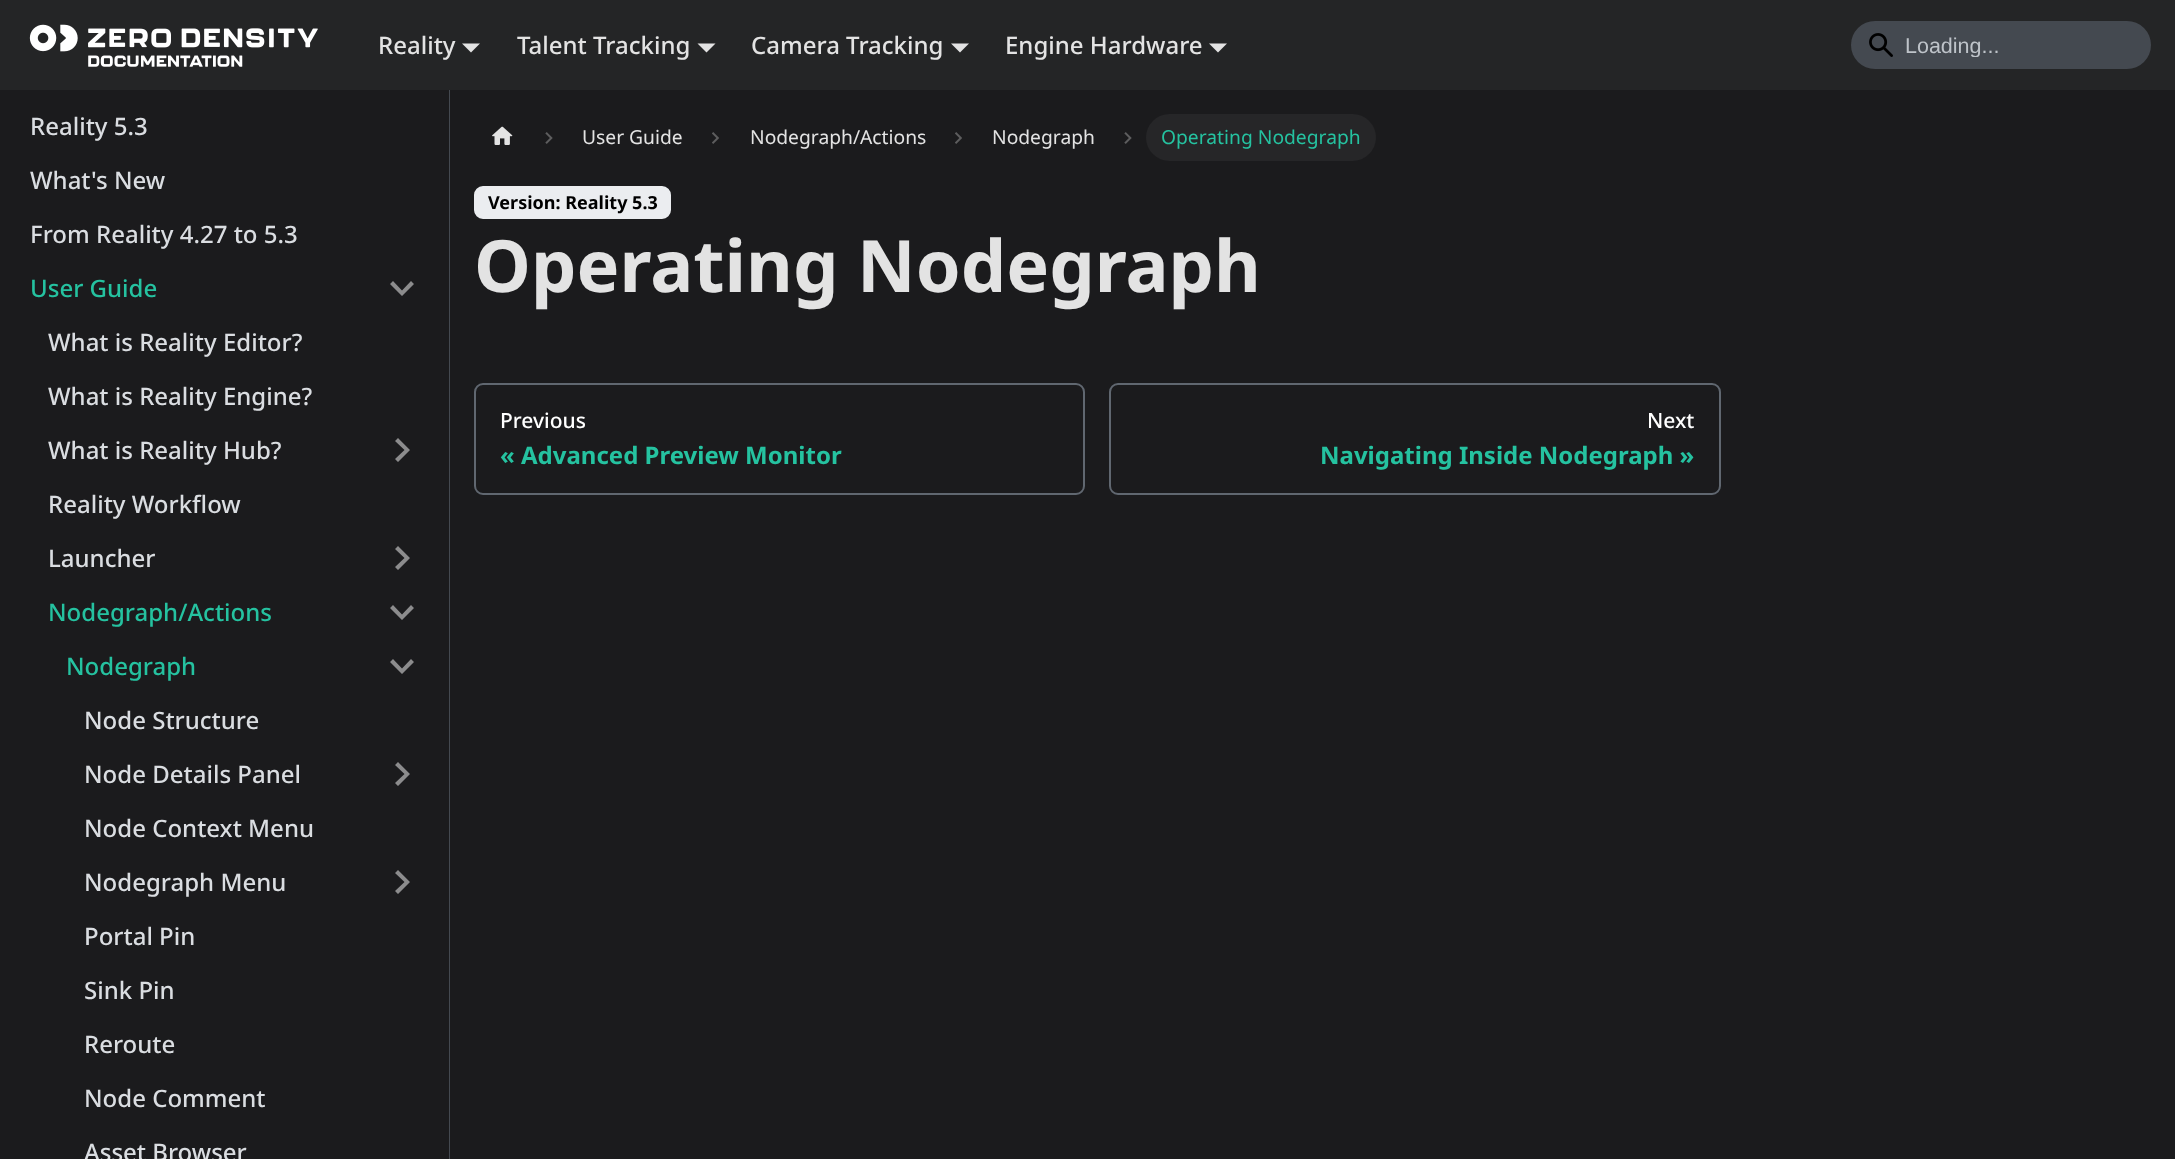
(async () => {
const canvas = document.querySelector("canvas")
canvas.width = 2175
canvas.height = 1159
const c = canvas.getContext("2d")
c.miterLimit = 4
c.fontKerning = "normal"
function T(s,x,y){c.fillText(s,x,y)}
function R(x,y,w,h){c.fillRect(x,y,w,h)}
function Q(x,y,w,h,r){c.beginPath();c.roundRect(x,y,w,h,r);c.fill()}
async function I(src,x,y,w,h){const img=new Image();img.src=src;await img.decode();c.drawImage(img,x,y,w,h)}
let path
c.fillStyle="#1b1b1d"
R(0,0,2175,1159)
c.fillStyle="#242526"
R(0,0,2175,90)
await I("1.png",29,24,289,43)
c.font="500 24px Noto Sans"
c.fillStyle="#e3e3e3"
T("Reality",378,54)
path = new Path2D("M462 43.5h18l-9 9z")
c.fill(path)
T("Talent Tracking",517,54)
path = new Path2D("M697.5 43.5h18l-9 9z")
c.fill(path)
T("Camera Tracking",751,54)
path = new Path2D("M951 43.5h18l-9 9z")
c.fill(path)
T("Engine Hardware",1005,54)
path = new Path2D("M1209 43.5h18l-9 9z")
c.fill(path)
c.fillStyle="#444950"
Q(1851,21,300,48,24)
await I("2.png",1869,33,24,24)
c.save()
c.beginPath()
c.rect(1905,33,213,24)
c.clip()
c.font="21.5px Liberation Sans"
c.fillStyle="#bec3c9"
T("Loading...",1905,53)
c.restore()
R(449,90,1,1069)
c.fillStyle="#dadde1"
T("Reality 5.3",30,135)
T("What's New",30,189)
T("From Reality 4.27 to 5.3",30,243)
c.fillStyle="#25c2a0"
T("User Guide",30,297)
c.fillStyle="#8c8c8d"
path = new Path2D("M411 281l-9 9.5l-9-9.5l-3 3l12 12l12-12z")
c.fill(path)
c.fillStyle="#dadde1"
T("What is Reality Editor?",48,351)
T("What is Reality Engine?",48,405)
T("What is Reality Hub?",48,459)
c.fillStyle="#8c8c8d"
path = new Path2D("M395 441l9.5 9l-9.5 9l3 3l12-12l-12-12z")
c.fill(path)
c.fillStyle="#dadde1"
T("Reality Workflow",48,513)
T("Launcher",48,567)
c.fillStyle="#8c8c8d"
path = new Path2D("M395 549l9.5 9l-9.5 9l3 3l12-12l-12-12z")
c.fill(path)
c.fillStyle="#25c2a0"
T("Nodegraph/Actions",48,621)
c.fillStyle="#8c8c8d"
path = new Path2D("M411 605l-9 9.5l-9-9.5l-3 3l12 12l12-12z")
c.fill(path)
c.fillStyle="#25c2a0"
T("Nodegraph",66,675)
c.fillStyle="#8c8c8d"
path = new Path2D("M411 659l-9 9.5l-9-9.5l-3 3l12 12l12-12z")
c.fill(path)
c.fillStyle="#dadde1"
T("Node Structure",84,729)
T("Node Details Panel",84,783)
c.fillStyle="#8c8c8d"
path = new Path2D("M395 765l9.5 9l-9.5 9l3 3l12-12l-12-12z")
c.fill(path)
c.fillStyle="#dadde1"
T("Node Context Menu",84,837)
T("Nodegraph Menu",84,891)
c.fillStyle="#8c8c8d"
path = new Path2D("M395 873l9.5 9l-9.5 9l3 3l12-12l-12-12z")
c.fill(path)
c.fillStyle="#dadde1"
T("Portal Pin",84,945)
T("Sink Pin",84,999)
T("Reroute",84,1053)
T("Node Comment",84,1107)
T("Asset Browser",84,1161)
await I("3.png",492,126,21,19)
await I("4.png",545,132,8,12)
c.font="19.25px Noto Sans"
c.fillStyle="#e3e3e3"
T("User Guide",582,144)
await I("5.png",712,132,7,12)
T("Nodegraph/Actions",750,144)
await I("5.png",955,132,7,12)
T("Nodegraph",992,144)
await I("4.png",1124,132,8,12)
c.fillStyle="#262628"
Q(1146,114,230,47,23.5)
c.fillStyle="#25c2a0"
T("Operating Nodegraph",1161,144)
c.fillStyle="#ebedf0"
c.beginPath()
c.roundRect(475,187,195,31,8)
c.fill()
c.strokeStyle="#ebedf0"
c.lineWidth=2
c.stroke()
c.font="bold 18px Noto Sans"
c.fillStyle="#000"
T("Version: Reality 5.3",488,209)
c.font="bold 72px Noto Sans"
c.fillStyle="#e3e3e3"
T("Operating Nodegraph",474,292)
c.beginPath()
c.roundRect(475,384,609,110,8)
c.strokeStyle="#606770"
c.stroke()
c.font="500 21px Noto Sans"
c.fillStyle="#fff"
T("Previous",500,428)
c.font="bold 24px Noto Sans"
c.fillStyle="#25c2a0"
T("« Advanced Preview Monitor",500,464)
c.beginPath()
c.roundRect(1110,384,610,110,8)
c.stroke()
c.font="500 21px Noto Sans"
c.fillStyle="#fff"
T("Next",1647,428)
c.font="bold 24px Noto Sans"
c.fillStyle="#25c2a0"
T("Navigating Inside Nodegraph »",1320,464)
})()
